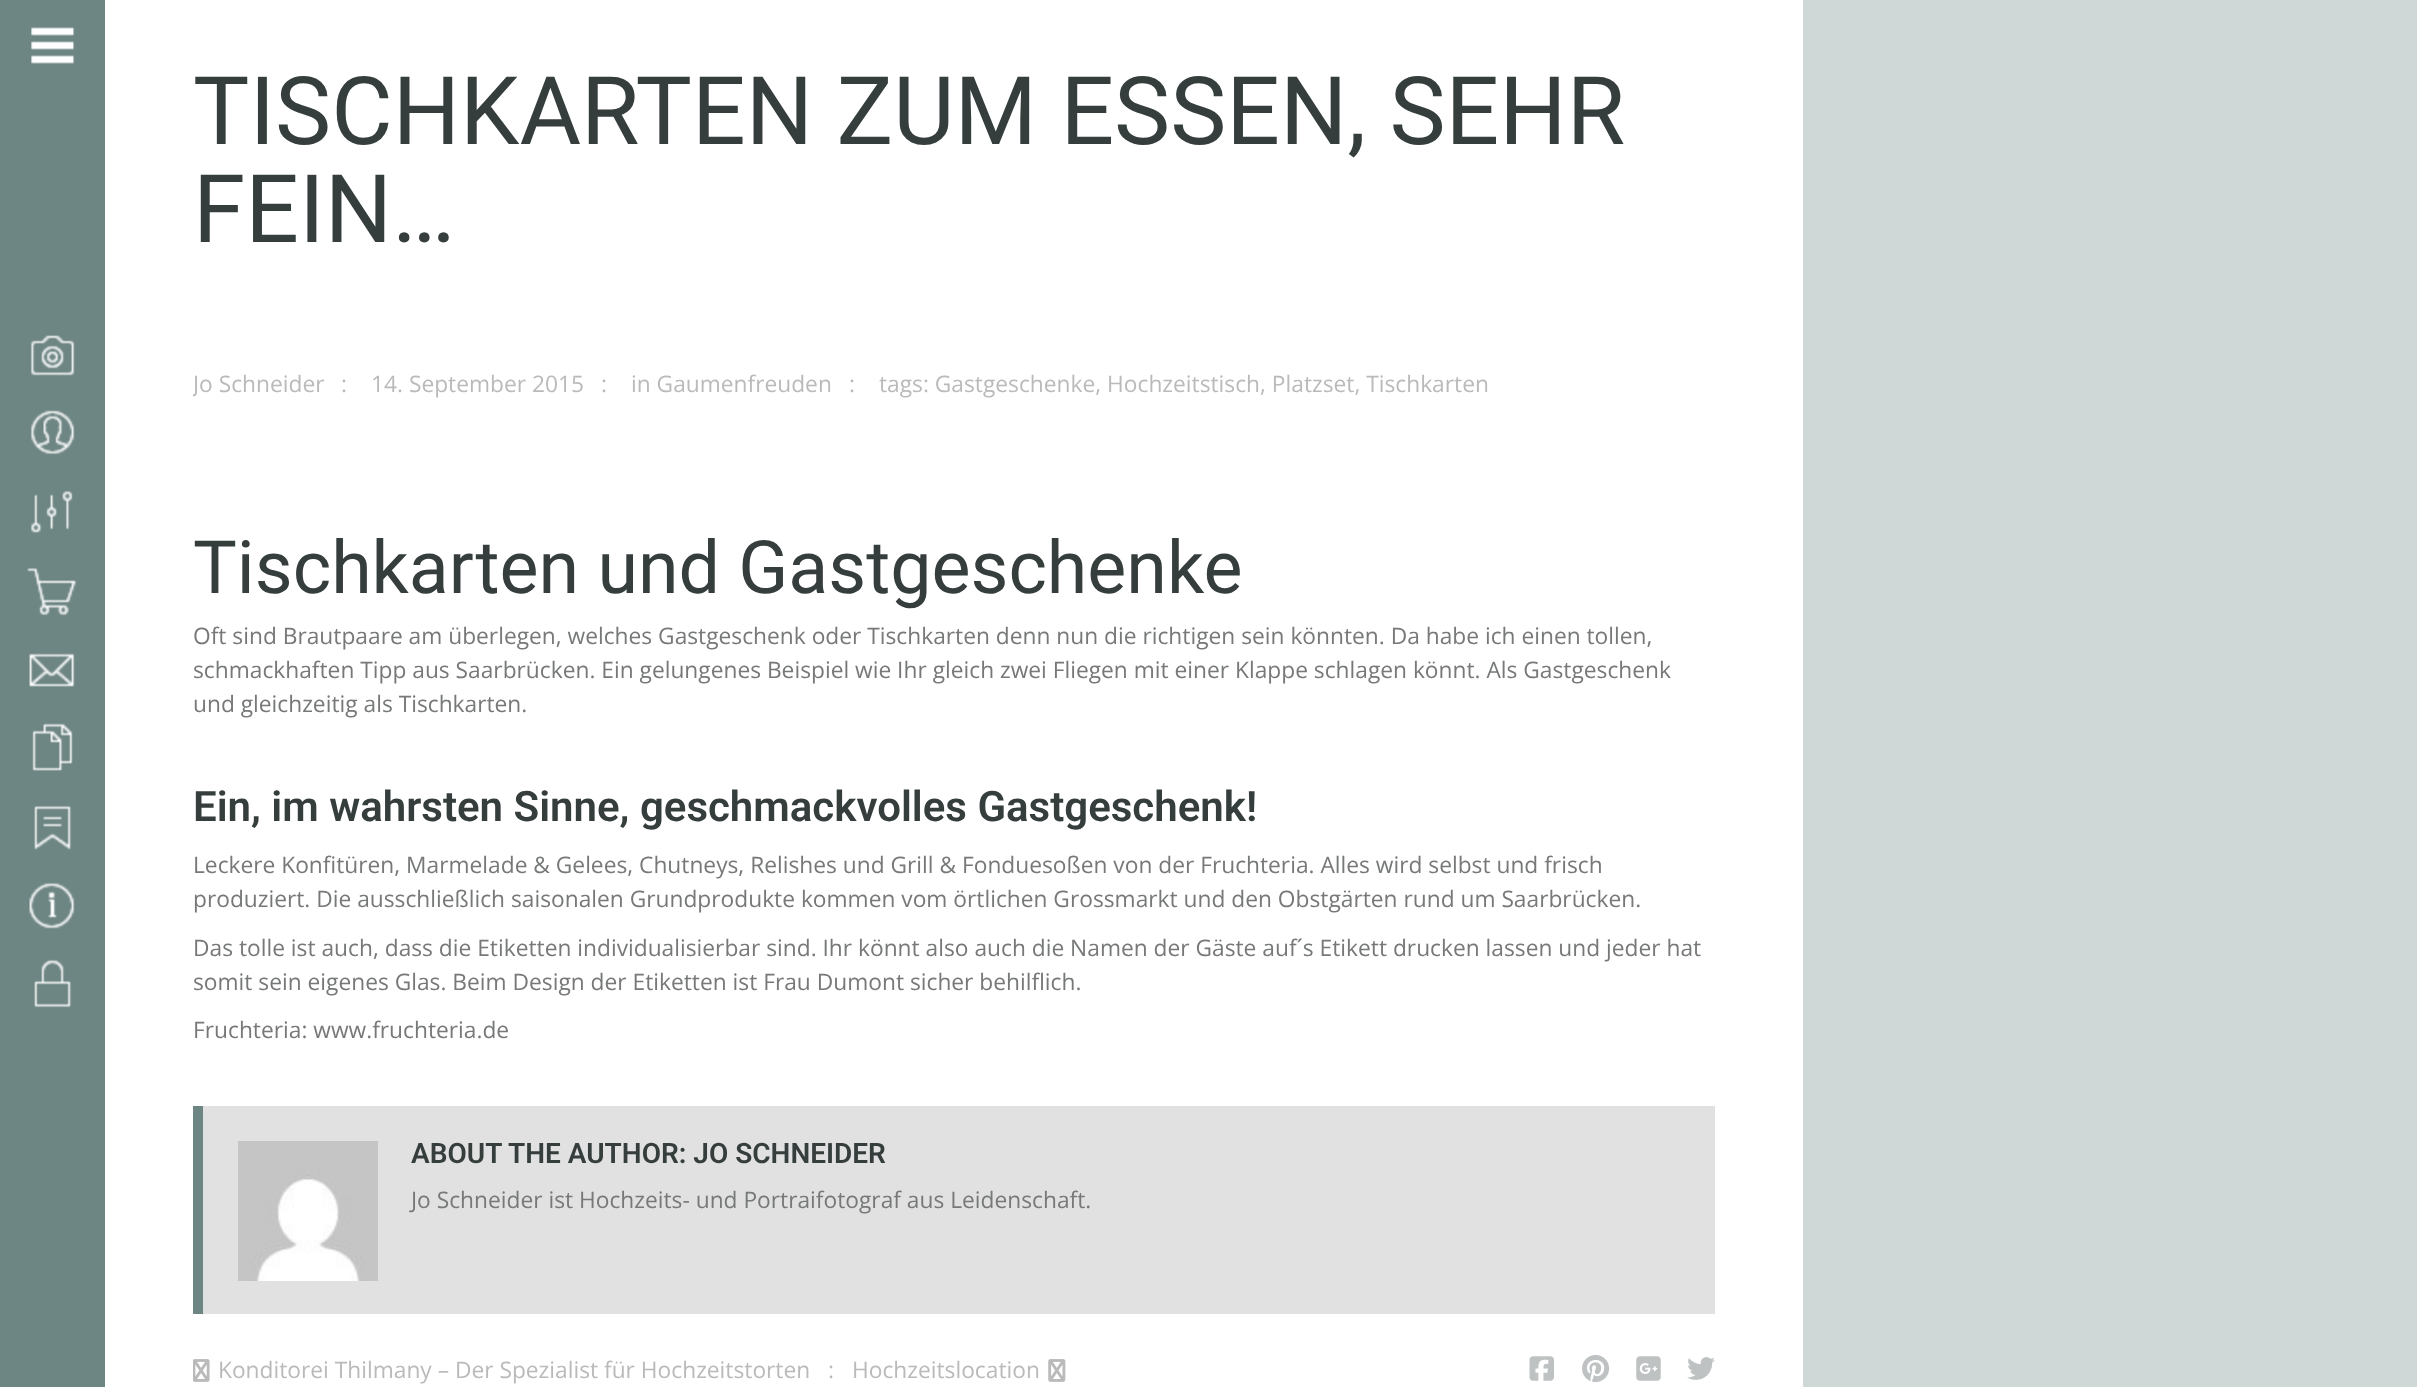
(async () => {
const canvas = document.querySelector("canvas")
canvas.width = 2417
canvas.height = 1387
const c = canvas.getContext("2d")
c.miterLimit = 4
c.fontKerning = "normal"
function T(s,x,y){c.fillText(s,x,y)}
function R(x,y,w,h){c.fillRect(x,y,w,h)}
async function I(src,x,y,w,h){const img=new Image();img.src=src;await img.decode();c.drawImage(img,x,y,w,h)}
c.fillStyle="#cfd7d7"
R(0,0,2417,1387)
c.fillStyle="#6d8583"
R(0,0,105,1387)
await I("1.png",31,27,44,37)
await I("2.png",30,335,45,41)
await I("3.png",30,410,45,45)
await I("4.png",30,490,43,43)
await I("5.png",27,567,50,49)
await I("6.png",29,653,46,34)
await I("7.png",32,723,41,48)
await I("8.png",34,805,38,45)
await I("9.png",29,882,46,47)
await I("10.png",34,959,38,49)
c.fillStyle="#fff"
R(105,0,1698,1387)
c.font="94.5px Roboto"
c.fillStyle="#353e3d"
T("TISCHKARTEN ZUM ESSEN, SEHR",193,144)
T("FEIN…",193,242)
c.save()
c.beginPath()
c.rect(193,298,1522,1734)
c.clip()
c.font="22.75px Open Sans"
c.fillStyle="#bababa"
T("Jo Schneider",193,392)
c.restore()
c.font="22.75px Open Sans"
c.fillStyle="#bababa"
T(":",341,392)
T("14. September 2015",371,392)
T(":",601,392)
T("in Gaumenfreuden",631,392)
T(":",849,392)
T("tags: Gastgeschenke, Hochzeitstisch, Platzset, Tischkarten",879,392)
c.font="73.5px Roboto"
c.fillStyle="#353e3d"
T("Tischkarten und Gastgeschenke",193,593)
c.font="22.75px Open Sans"
c.fillStyle="#777979"
T("Oft sind Brautpaare am überlegen, welches Gastgeschenk oder Tischkarten denn nun die richtigen sein könnten. Da habe ich einen tollen,",193,644)
T("schmackhaften Tipp aus Saarbrücken. Ein gelungenes Beispiel wie Ihr gleich zwei Fliegen mit einer Klappe schlagen könnt. Als Gastgeschenk",193,678)
T("und gleichzeitig als Tischkarten.",193,712)
c.font="600 42px Roboto"
c.fillStyle="#353e3d"
T("Ein, im wahrsten Sinne, geschmackvolles Gastgeschenk!",193,821)
c.font="22.75px Open Sans"
c.fillStyle="#777979"
T("Leckere Konfitüren, Marmelade & Gelees, Chutneys, Relishes und Grill & Fonduesoßen von der Fruchteria. Alles wird selbst und frisch",193,873)
T("produziert. Die ausschließlich saisonalen Grundprodukte kommen vom örtlichen Grossmarkt und den Obstgärten rund um Saarbrücken.",193,907)
T("Das tolle ist auch, dass die Etiketten individualisierbar sind. Ihr könnt also auch die Namen der Gäste auf´s Etikett drucken lassen und jeder hat",193,956)
T("somit sein eigenes Glas. Beim Design der Etiketten ist Frau Dumont sicher behilflich.",193,990)
T("Fruchteria: www.fruchteria.de",193,1038)
c.fillStyle="#e1e1e1"
R(203,1106,1512,208)
c.fillStyle="#6d8583"
R(193,1106,10,208)
await I("11.png",238,1141,140,140)
c.font="600 28px Roboto"
c.fillStyle="#353e3d"
T("ABOUT THE AUTHOR: JO SCHNEIDER",411,1163)
c.font="22.75px Open Sans"
c.fillStyle="#777979"
T("Jo Schneider ist Hochzeits- und Portraifotograf aus Leidenschaft.",411,1208)
await I("12.png",193,1359,17,23)
c.fillStyle="#bababa"
T("Konditorei Thilmany – Der Spezialist für Hochzeitstorten",218,1378)
T(":",828,1378)
T("Hochzeitslocation",852,1378)
await I("13.png",1048,1359,18,23)
await I("14.png",1529,1356,25,25)
await I("15.png",1582,1355,28,27)
await I("16.png",1636,1356,25,25)
await I("17.png",1687,1357,28,23)
})()
